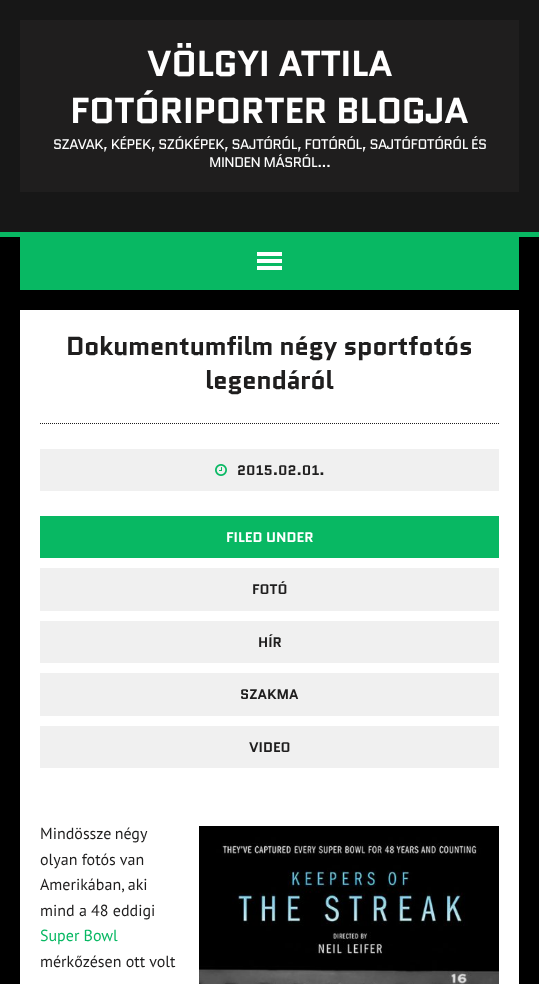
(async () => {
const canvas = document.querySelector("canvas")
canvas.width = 539
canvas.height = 984
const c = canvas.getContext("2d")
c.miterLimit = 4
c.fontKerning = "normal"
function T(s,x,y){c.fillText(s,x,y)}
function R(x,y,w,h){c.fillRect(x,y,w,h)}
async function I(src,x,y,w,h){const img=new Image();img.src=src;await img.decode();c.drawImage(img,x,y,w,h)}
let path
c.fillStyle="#000"
R(0,0,539,984)
c.fillStyle="#171717"
R(0,0,539,232)
c.fillStyle="#08b863"
R(0,232,539,5)
c.fillStyle="#1f1e1e"
R(20,20,499,172)
c.letterSpacing="-0.48px"
c.font="bold 36px Quantico"
c.fillStyle="#fff"
T("VÖLGYI ATTILA",147,76)
T("FOTÓRIPORTER BLOGJA",70,123)
c.font="14px Quantico"
T("SZAVAK, KÉPEK, SZÓKÉPEK, SAJTÓRÓL, FOTÓRÓL, SAJTÓFOTÓRÓL ÉS",53,149)
T("MINDEN MÁSRÓL...",209,167)
c.fillStyle="#08b863"
R(20,237,499,53)
c.fillStyle="#fff"
R(257,252,25,4)
R(257,259,25,4)
R(257,266,25,4)
R(20,310,499,674)
c.font="bold 26px Quantico"
c.fillStyle="#1f1e1e"
T("Dokumentumfilm négy sportfotós",66,355)
T("legendáról",205,389)
path = new Path2D("M40 423.5h459")
c.strokeStyle="#1f1e1e"
c.setLineDash([1,1])
c.stroke(path)
c.fillStyle="#f0f0f0"
R(40,449,459,42)
await I("1.png",215,464,12,12)
c.letterSpacing="0px"
c.font="bold 14px Quantico"
c.fillStyle="#1f1e1e"
T("2015.02.01.",237,475)
c.fillStyle="#08b863"
R(40,516,459,42)
c.fillStyle="#fff"
T("FILED UNDER",226,542)
c.fillStyle="#f0f0f0"
R(40,568,459,43)
c.fillStyle="#1f1e1e"
T("FOTÓ",252,594)
c.fillStyle="#f0f0f0"
R(40,621,459,42)
c.fillStyle="#1f1e1e"
T("HÍR",258,647)
c.fillStyle="#f0f0f0"
R(40,673,459,43)
c.fillStyle="#1f1e1e"
T("SZAKMA",240,699)
c.fillStyle="#f0f0f0"
R(40,726,459,42)
c.fillStyle="#1f1e1e"
T("VIDEO",249,752)
c.wordSpacing="-1px"
c.font="16px PT Sans"
T("Mindössze négy",40,839)
await I("2.png",199,826,300,158)
c.wordSpacing="0px"
T("olyan fotós van",40,865)
T("Amerikában, aki",40,890)
T("mind a 48 eddigi",40,916)
c.fillStyle="#08b863"
T("Super Bowl",40,941)
c.fillStyle="#1f1e1e"
T("mérkőzésen ott volt",40,967)
})()
